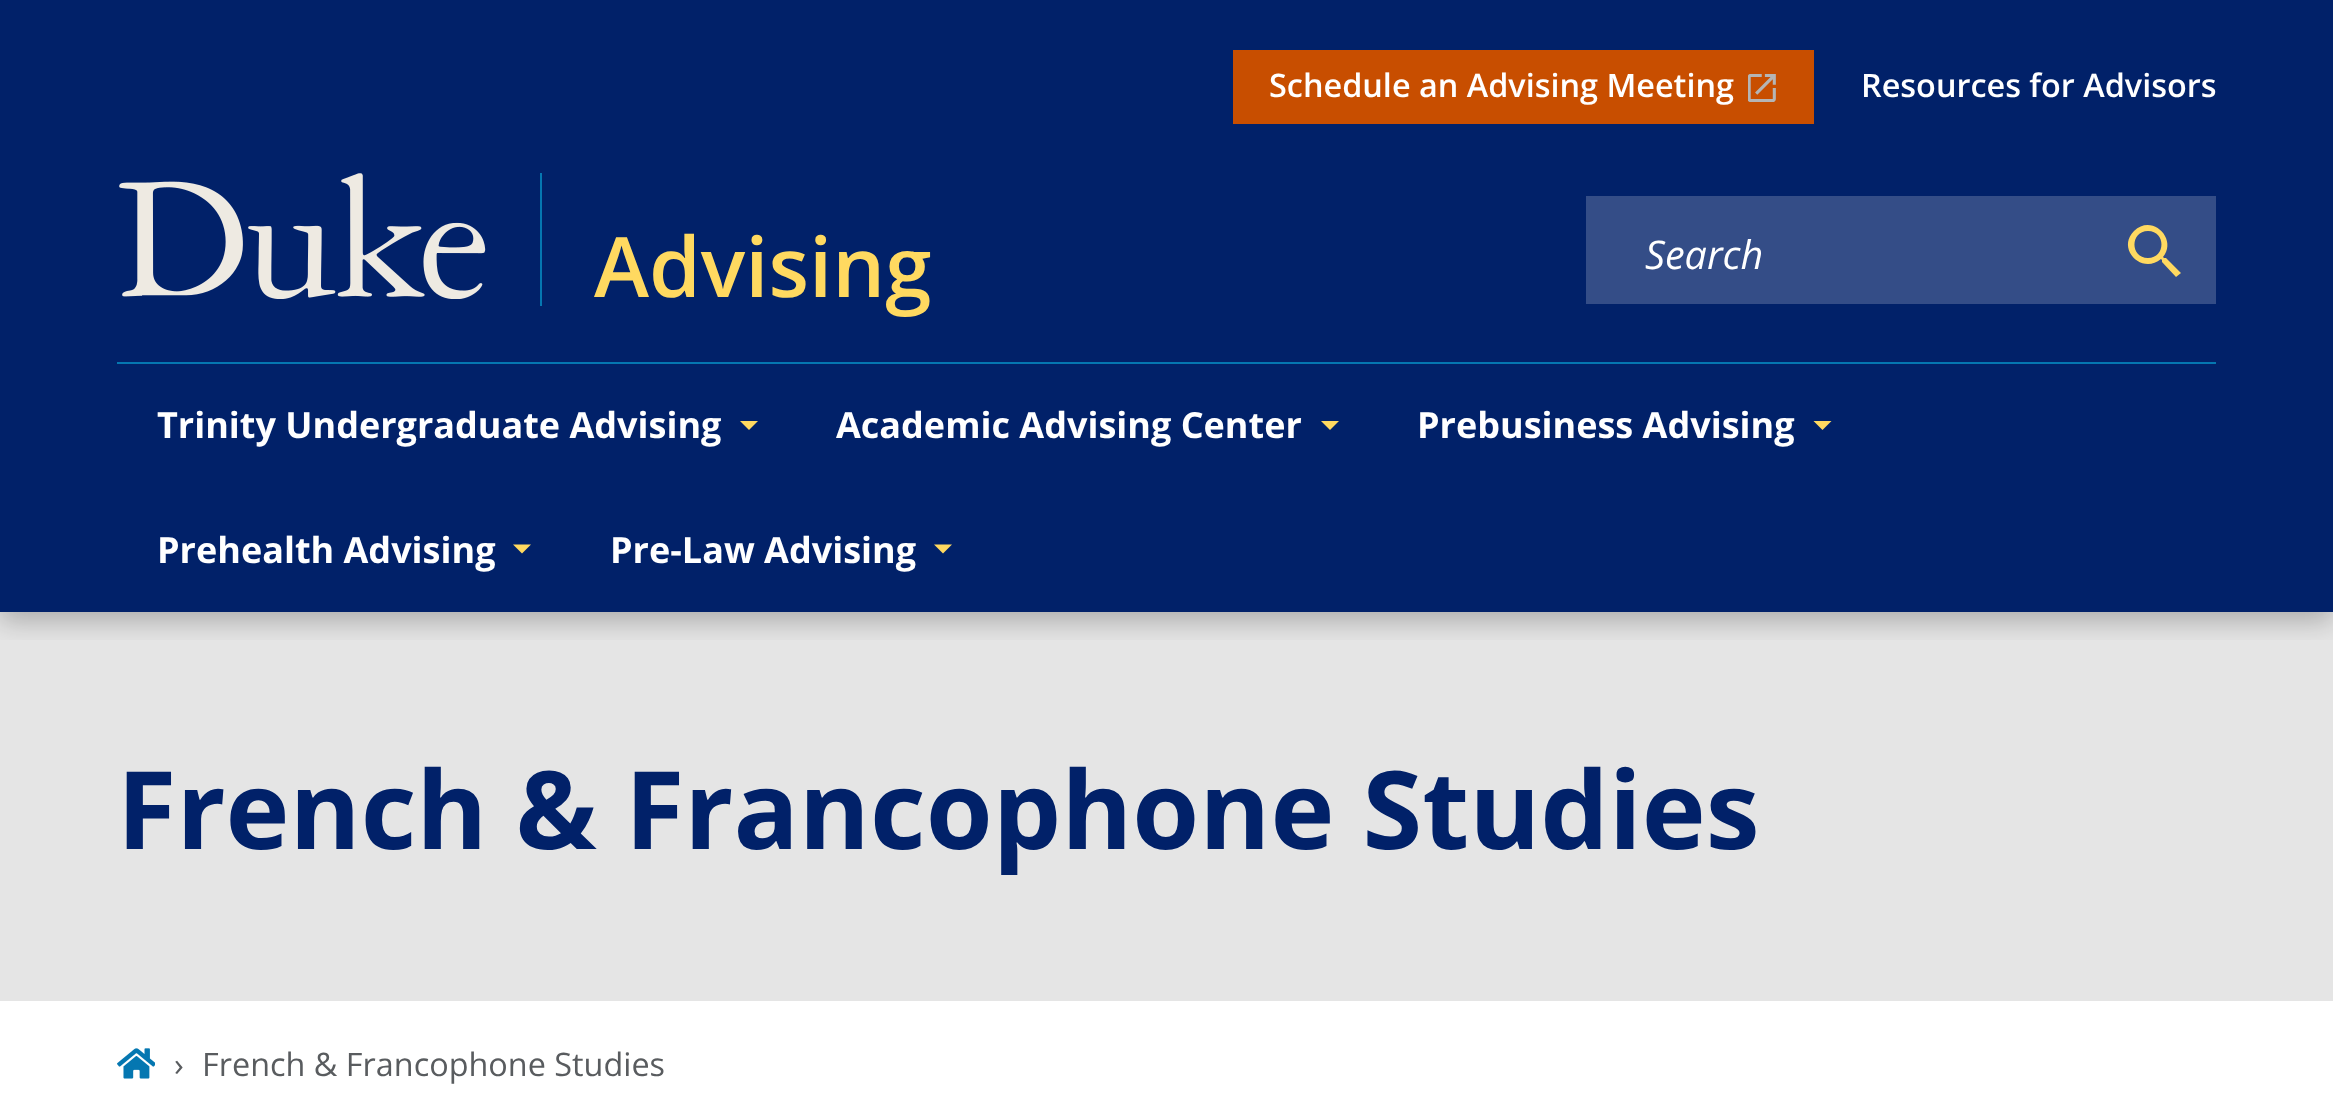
(async () => {
const canvas = document.querySelector("canvas")
canvas.width = 2333
canvas.height = 1094
const c = canvas.getContext("2d")
c.miterLimit = 4
c.fontKerning = "normal"
function T(s,x,y){c.fillText(s,x,y)}
function R(x,y,w,h){c.fillRect(x,y,w,h)}
async function I(src,x,y,w,h){const img=new Image();img.src=src;await img.decode();c.drawImage(img,x,y,w,h)}
let path
c.fillStyle="#fff"
R(0,0,2333,1094)
c.fillStyle="#012169"
R(0,0,2333,612)
c.fillStyle="#e5e5e5"
R(0,612,2333,389)
c.save()
c.beginPath()
c.rect(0,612,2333,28)
c.clip()
c.fillStyle="#00000040"
c.filter="blur(13.5px)"
c.beginPath()
c.rect(0,9,2333,612)
c.fill()
c.filter="none"
c.restore()
c.fillStyle="#c84e00"
R(1233,50,581,74)
c.font="600 32.4px Open Sans"
c.fillStyle="#fff"
T("Schedule an Advising Meeting",1269,97)
await I("1.png",1748,74,28,28)
T("Resources for Advisors",1861,97)
await I("2.png",119,173,367,126)
c.fillStyle="#0577b1"
R(540,173,2,133)
c.font="600 83.25px Open Sans"
c.fillStyle="#ffd960"
T("Advising",594,297)
c.fillStyle="#344d87"
R(1586,196,630,108)
c.font="italic 39.5px Open Sans"
c.fillStyle="#fff"
T("Search",1645,269)
c.fillStyle="#ffd960"
path = new Path2D("M2166 258h-2l-1-1c15-18-11-44-29-26c-18 18 8 44 27 28l1 1v2l14 15l5-4zm-18 0c-18 0-18-27 0-27c18 0 18 27 0 27z")
c.fill(path)
c.fillStyle="#0577b1"
R(117,362,2099,2)
c.font="bold 36px Open Sans"
c.fillStyle="#fff"
T("Trinity Undergraduate Advising",157,438)
c.fillStyle="#ffd960"
path = new Path2D("M740 421h18l-9 9z")
c.fill(path)
c.fillStyle="#fff"
T("Academic Advising Center",836,438)
c.fillStyle="#ffd960"
path = new Path2D("M1321 421h18l-9 9z")
c.fill(path)
c.fillStyle="#fff"
T("Prebusiness Advising",1417,438)
c.fillStyle="#ffd960"
path = new Path2D("M1813.5 421h18l-9 9z")
c.fill(path)
c.fillStyle="#fff"
T("Prehealth Advising",157,563)
c.fillStyle="#ffd960"
path = new Path2D("M513 544.5h18l-9 9z")
c.fill(path)
c.fillStyle="#fff"
T("Pre-Law Advising",610,563)
c.fillStyle="#ffd960"
path = new Path2D("M934 544.5h18l-9 9z")
c.fill(path)
c.font="bold 108.25px Open Sans"
c.fillStyle="#012169"
T("French & Francophone Studies",117,849)
await I("3.png",117,1048,38,31)
c.font="32.4px Open Sans"
c.fillStyle="#595c5f"
T("›",174,1076)
T("French & Francophone Studies",202,1076)
})()
